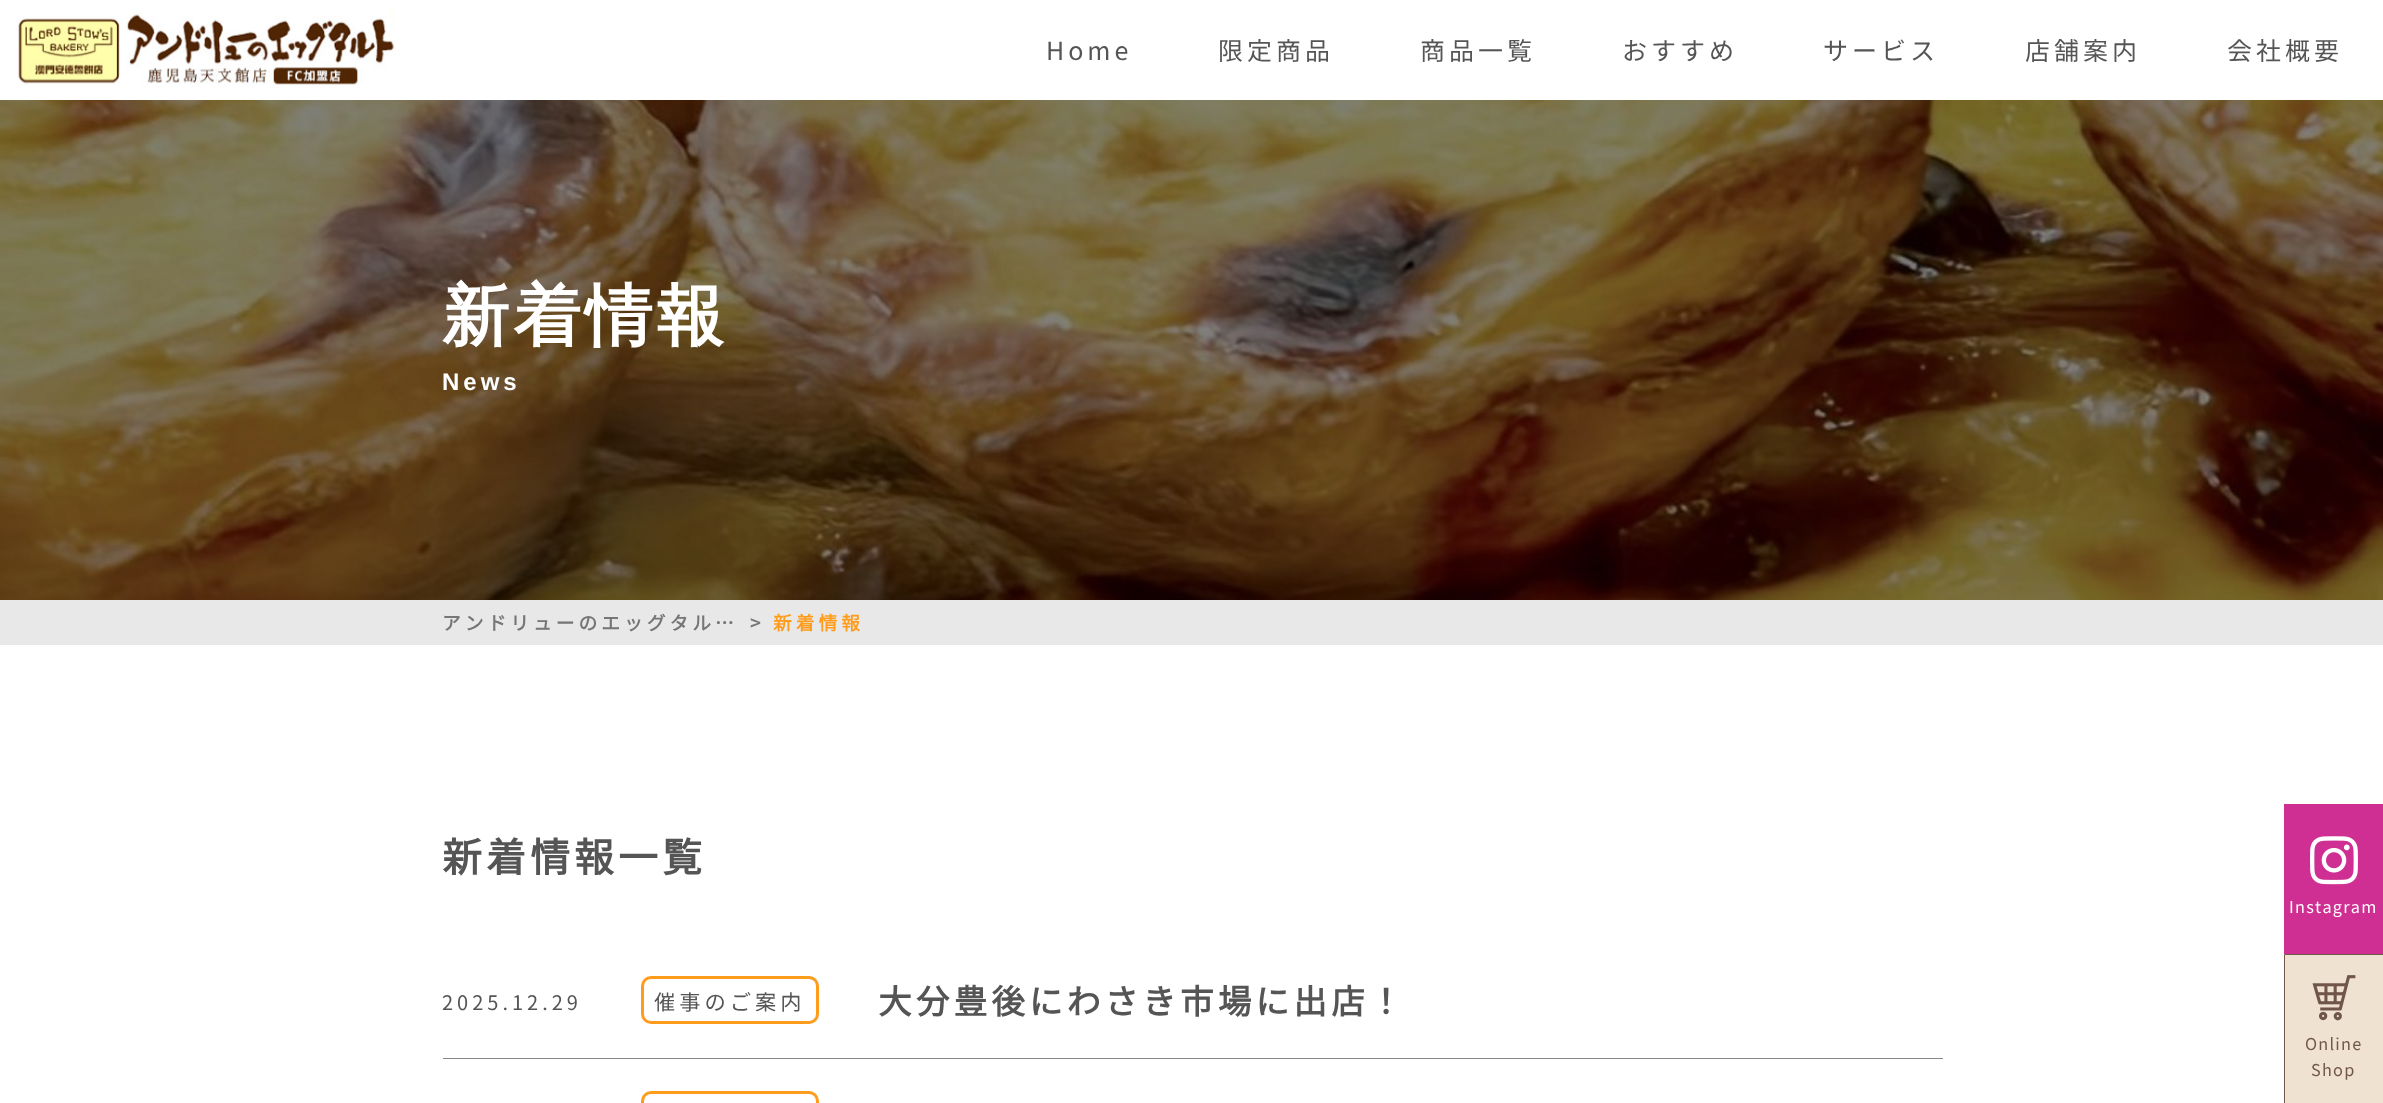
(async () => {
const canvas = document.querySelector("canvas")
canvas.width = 2383
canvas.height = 1103
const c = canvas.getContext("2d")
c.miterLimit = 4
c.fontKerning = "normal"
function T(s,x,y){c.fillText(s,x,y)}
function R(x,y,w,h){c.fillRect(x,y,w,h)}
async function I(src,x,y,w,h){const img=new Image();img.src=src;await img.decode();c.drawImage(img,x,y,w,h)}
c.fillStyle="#fff"
R(0,0,2383,1103)
await I("1.png",17,10,379,75)
c.letterSpacing="4px"
c.font="25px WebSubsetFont"
c.fillStyle="#555"
T("Home",1046,60)
T("限定商品",1218,60)
T("商品一覧",1420,60)
T("おすすめ",1622,60)
T("サービス",1823,60)
T("店舗案内",2025,60)
T("会社概要",2227,60)
await I("2.png",0,100,2383,500)
c.font="bold 67.5px WenQuanYi Zen Hei"
c.fillStyle="#fff"
T("新着情報",442,339)
c.font="bold 24px Liberation Sans"
T("News",442,390)
c.fillStyle="#e8e8e8"
R(0,600,2383,45)
c.font="bold 18.75px WebSubsetFont"
c.fillStyle="#767676"
T("アンドリューのエッグタル…",442,630)
T(">",750,630)
c.fillStyle="#ff9c1c"
T("新着情報",773,630)
c.font="bold 40px WebSubsetFont"
c.fillStyle="#555"
T("新着情報一覧",442,872)
c.fillStyle="#888"
R(443,1058,1500,1)
c.font="20px WebSubsetFont"
c.fillStyle="#555"
T("2025.12.29",442,1010)
c.beginPath()
c.roundRect(642.5,977.5,175,45,8.5)
c.strokeStyle="#ff9c1c"
c.lineWidth=3
c.stroke()
c.font="21.25px WebSubsetFont"
T("催事のご案内",654,1010)
c.font="bold 33.75px WebSubsetFont"
T("大分豊後にわさき市場に出店！",878,1014)
c.beginPath()
c.roundRect(642.5,1092.5,175,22,8.5)
c.stroke()
c.fillStyle="#cf2e92"
R(2284,804,99,150)
await I("3.png",2310,836,48,49)
c.letterSpacing="1.25px"
c.font="16.25px WebSubsetFont"
c.fillStyle="#fff"
T("Instagram",2289,913)
c.fillStyle="#efe2d0"
c.beginPath()
c.rect(2284.5,954.5,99,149)
c.fill()
c.strokeStyle="#71574a"
c.lineWidth=1
c.stroke()
await I("4.png",2312,975,44,46)
c.fillStyle="#71574a"
T("Online",2305,1050)
T("Shop",2311,1076)
})()
